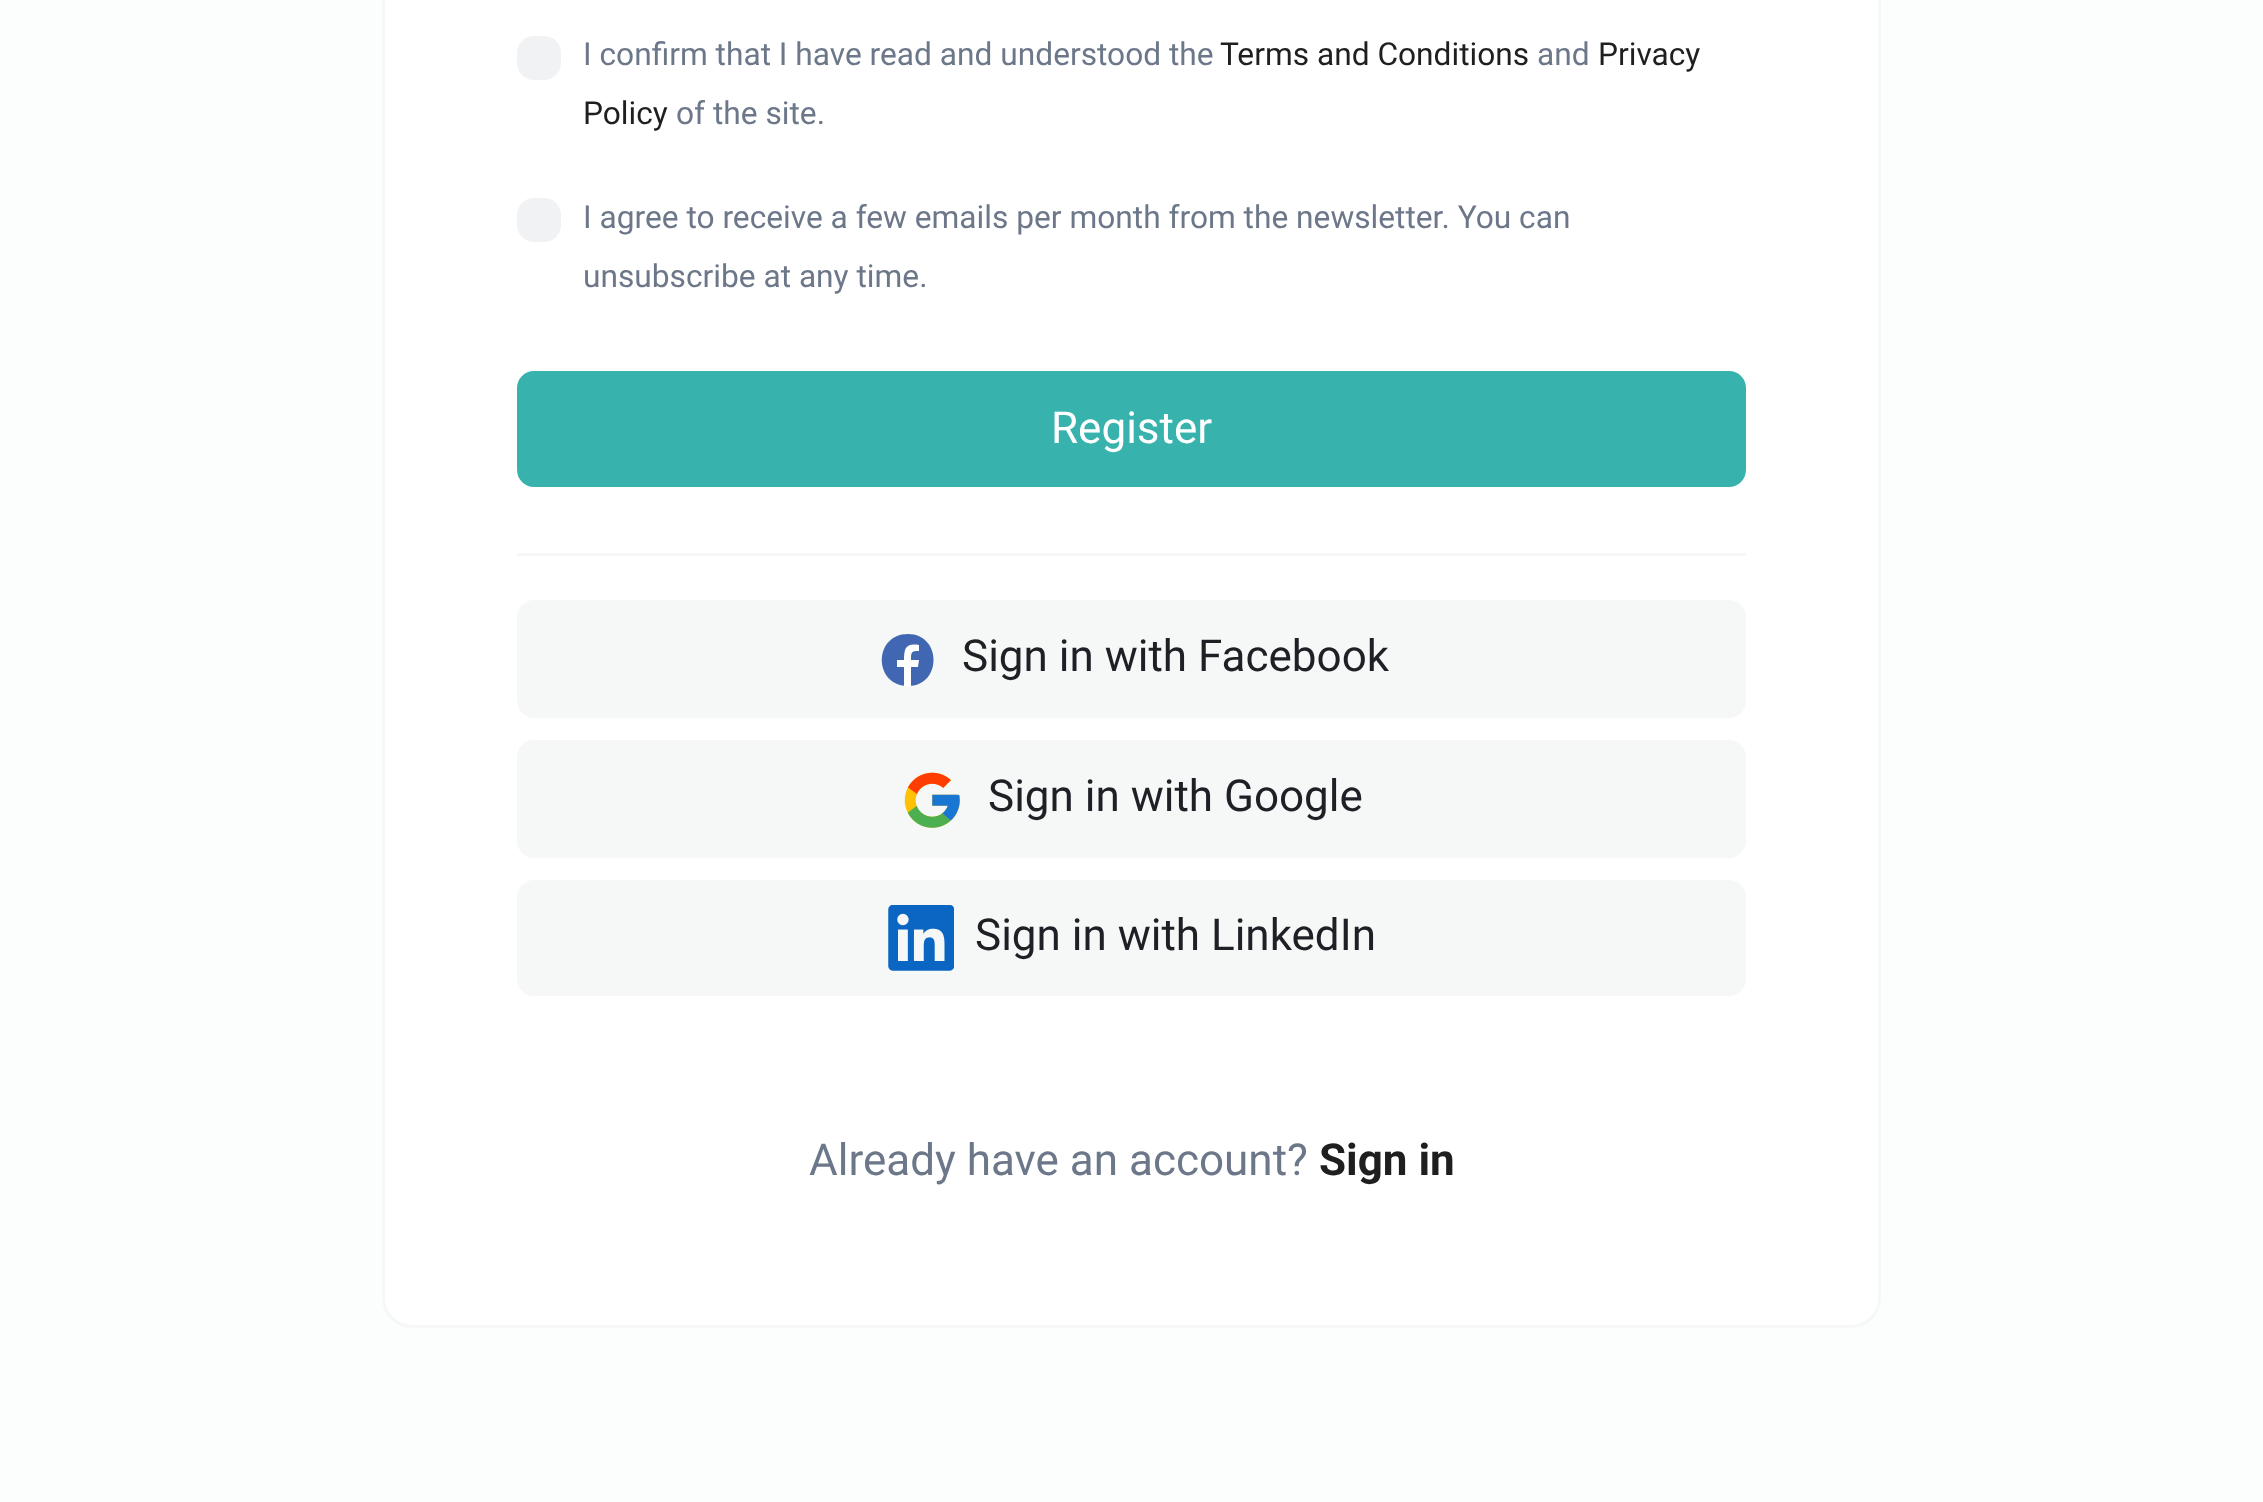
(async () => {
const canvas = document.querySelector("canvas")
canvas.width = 2263
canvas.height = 1502
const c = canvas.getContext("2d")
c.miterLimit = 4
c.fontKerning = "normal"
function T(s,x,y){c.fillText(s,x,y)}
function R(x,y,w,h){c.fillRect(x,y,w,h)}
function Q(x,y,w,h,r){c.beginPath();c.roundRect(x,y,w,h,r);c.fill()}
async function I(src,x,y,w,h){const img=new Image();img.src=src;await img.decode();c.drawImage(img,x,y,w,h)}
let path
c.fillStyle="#fcfdfd"
R(0,0,2263,1502)
c.fillStyle="#fff"
c.beginPath()
c.roundRect(383.5,-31.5,1496,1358,28.5)
c.fill()
c.strokeStyle="#f6f8f8"
c.lineWidth=3
c.stroke()
c.fillStyle="#f1f2f4"
Q(517,36,44,44,17)
c.font="31.7px Roboto"
c.fillStyle="#6c7789"
T("I confirm that I have read and understood the",583,65)
c.fillStyle="#1f1f1f"
T("Terms and Conditions",1220,65)
c.fillStyle="#6c7789"
T("and",1537,65)
c.fillStyle="#1f1f1f"
T("Privacy",1598,65)
T("Policy",583,124)
c.fillStyle="#6c7789"
T("of the site.",676,124)
c.fillStyle="#f1f2f4"
Q(517,198,44,44,17)
c.fillStyle="#6c7789"
T("I agree to receive a few emails per month from the newsletter. You can",583,228)
T("unsubscribe at any time.",583,287)
c.fillStyle="#38b2ac"
Q(517,371,1229,116,17)
c.font="44px Roboto"
c.fillStyle="#fff"
T("Register",1051,443)
c.fillStyle="#f6f8f8"
R(517,553,1229,3)
Q(517,600,1229,118,17)
c.fillStyle="#4267b2"
path = new Path2D("M908 634c-35 0-35 52 0 52c34 0 34-52 0-52z")
c.fill(path)
c.fillStyle="#1d2025"
T("Sign in with Facebook",962,671)
c.fillStyle="#fff"
path = new Path2D("M911 667h7l1-7h-8c0-8 0-9 8-9v-6c-13-2-15 3-15 15h-7v7h7v19h7z")
c.fill(path)
c.fillStyle="#f6f8f8"
Q(517,740,1229,118,17)
await I("1.png",904,772,56,56)
c.fillStyle="#1d2025"
T("Sign in with Google",988,811)
c.fillStyle="#f6f8f8"
Q(517,880,1229,116,17)
await I("2.png",888,905,66,66)
c.fillStyle="#1d2025"
T("Sign in with LinkedIn",975,950)
c.fillStyle="#6c7789"
T("Already have an account?",809,1175)
c.font="bold 44px Roboto"
c.fillStyle="#1f1f1f"
T("Sign in",1319,1175)
})()
